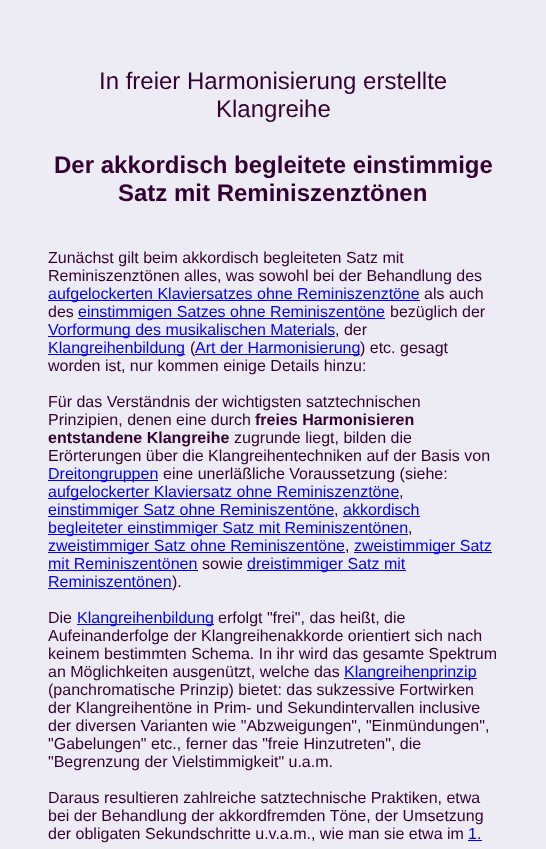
(async () => {
const canvas = document.querySelector("canvas")
canvas.width = 546
canvas.height = 849
const c = canvas.getContext("2d")
c.miterLimit = 4
c.fontKerning = "normal"
function T(s,x,y){c.fillText(s,x,y)}
function R(x,y,w,h){c.fillRect(x,y,w,h)}
c.fillStyle="#edebf3"
R(0,0,546,849)
c.font="24px Liberation Sans"
c.fillStyle="#303"
T("In freier Harmonisierung erstellte",99,89)
T("Klangreihe",216,117)
c.font="bold 24px Liberation Sans"
T("Der akkordisch begleitete einstimmige",54,173)
T("Satz mit Reminiszenztönen",118,201)
c.font="16px Liberation Sans"
T("Zunächst gilt beim akkordisch begleiteten Satz mit",48,263)
T("Reminiszenztönen alles, was sowohl bei der Behandlung des",48,281)
c.fillStyle="#00f"
R(48,300,372,1)
T("aufgelockerten Klaviersatzes ohne Reminiszenztöne",48,299)
c.fillStyle="#303"
T("als auch",424,299)
T("des",48,317)
c.fillStyle="#00f"
R(78,318,307,1)
T("einstimmigen Satzes ohne Reminiszentöne",78,317)
c.fillStyle="#303"
T("bezüglich der",390,317)
c.fillStyle="#00f"
R(48,336,287,1)
T("Vorformung des musikalischen Materials",48,335)
c.fillStyle="#303"
T(", der",335,335)
c.fillStyle="#00f"
R(48,354,137,1)
T("Klangreihenbildung",48,353)
c.fillStyle="#303"
T("(",190,353)
c.fillStyle="#00f"
R(195,354,165,1)
T("Art der Harmonisierung",195,353)
c.fillStyle="#303"
T(") etc. gesagt",360,353)
T("worden ist, nur kommen einige Details hinzu:",48,371)
T("Für das Verständnis der wichtigsten satztechnischen",48,407)
T("Prinzipien, denen eine durch",48,425)
c.font="bold 16px Liberation Sans"
T("freies Harmonisieren",255,425)
T("entstandene Klangreihe",48,443)
c.font="16px Liberation Sans"
T("zugrunde liegt, bilden die",234,443)
T("Erörterungen über die Klangreihentechniken auf der Basis von",48,461)
c.fillStyle="#00f"
R(48,480,110,1)
T("Dreitongruppen",48,479)
c.fillStyle="#303"
T("eine unerläßliche Voraussetzung (siehe:",163,479)
c.fillStyle="#00f"
R(48,498,351,1)
T("aufgelockerter Klaviersatz ohne Reminiszenztöne",48,497)
c.fillStyle="#303"
T(",",399,497)
c.fillStyle="#00f"
R(48,516,286,1)
T("einstimmiger Satz ohne Reminiszentöne",48,515)
c.fillStyle="#303"
T(",",334,515)
c.fillStyle="#00f"
R(343,516,77,1)
T("akkordisch",343,515)
R(48,534,360,1)
T("begleiteter einstimmiger Satz mit Reminiszentönen",48,533)
c.fillStyle="#303"
T(",",408,533)
c.fillStyle="#00f"
R(48,552,297,1)
T("zweistimmiger Satz ohne Reminiszentöne",48,551)
c.fillStyle="#303"
T(",",345,551)
c.fillStyle="#00f"
R(354,552,138,1)
T("zweistimmiger Satz",354,551)
T("mit Reminiszentönen",48,569)
R(48,570,150,1)
c.fillStyle="#303"
T("sowie",202,569)
c.fillStyle="#00f"
R(247,570,159,1)
T("dreistimmiger Satz mit",247,569)
T("Reminiszentönen",48,587)
R(48,588,124,1)
c.fillStyle="#303"
T(").",172,587)
T("Die",48,623)
c.fillStyle="#00f"
R(77,624,137,1)
T("Klangreihenbildung",77,623)
c.fillStyle="#303"
T("erfolgt \"frei\", das heißt, die",218,623)
T("Aufeinanderfolge der Klangreihenakkorde orientiert sich nach",48,641)
T("keinem bestimmten Schema. In ihr wird das gesamte Spektrum",48,659)
T("an Möglichkeiten ausgenützt, welche das",48,677)
c.fillStyle="#00f"
R(344,678,133,1)
T("Klangreihenprinzip",344,677)
c.fillStyle="#303"
T("(panchromatische Prinzip) bietet: das sukzessive Fortwirken",48,695)
T("der Klangreihentöne in Prim- und Sekundintervallen inclusive",48,713)
T("der diversen Varianten wie \"Abzweigungen\", \"Einmündungen\",",48,731)
T("\"Gabelungen\" etc., ferner das \"freie Hinzutreten\", die",48,749)
T("\"Begrenzung der Vielstimmigkeit\" u.a.m.",48,767)
T("Daraus resultieren zahlreiche satztechnische Praktiken, etwa",48,803)
T("bei der Behandlung der akkordfremden Töne, der Umsetzung",48,821)
T("der obligaten Sekundschritte u.v.a.m., wie man sie etwa im",48,839)
c.fillStyle="#00f"
T("1.",468,839)
R(468,840,14,1)
})()
